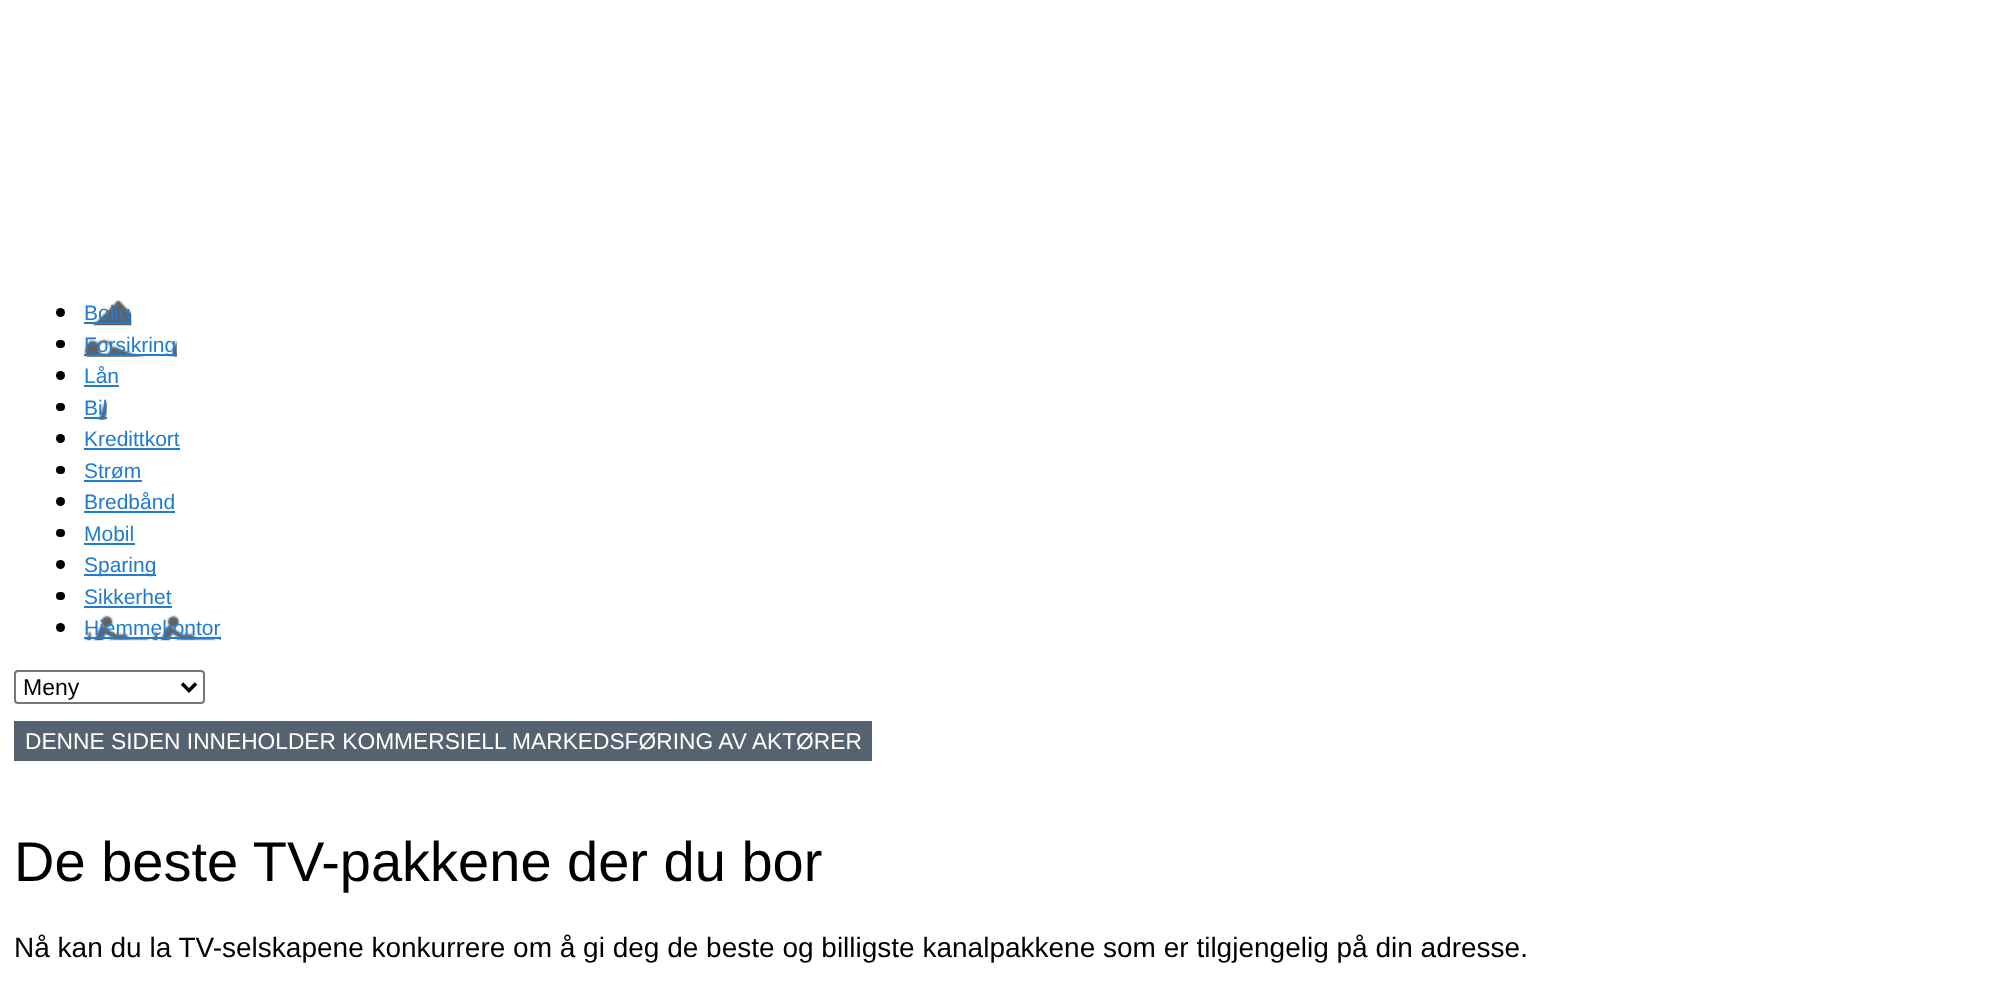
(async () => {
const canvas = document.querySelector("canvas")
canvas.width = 2006
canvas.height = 1007
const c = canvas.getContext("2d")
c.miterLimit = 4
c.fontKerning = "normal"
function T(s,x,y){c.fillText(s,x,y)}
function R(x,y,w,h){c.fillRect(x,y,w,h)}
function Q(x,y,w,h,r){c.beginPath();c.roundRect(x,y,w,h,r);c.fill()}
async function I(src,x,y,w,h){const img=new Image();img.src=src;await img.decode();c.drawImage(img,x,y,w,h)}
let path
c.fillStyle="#fff"
R(0,0,2006,1007)
await I("1.png",92,300,40,26)
c.fillStyle="#000"
c.beginPath()
c.arc(60.5,312.5,4.5,0,7)
c.fill()
c.fillStyle="#217cd0"
R(84,322,47,2)
c.font="21px Liberation Sans"
T("Bolig",84,320)
await I("2.png",84,338,93,19)
R(84,354,93,2)
T("Forsikring",84,352)
c.fillStyle="#000"
Q(56,340,9,8,4)
c.beginPath()
c.arc(60.5,375.5,4.5,0,7)
c.fill()
c.fillStyle="#217cd0"
T("Lån",84,383)
R(84,385,35,2)
await I("3.png",97,400,10,20)
T("Bil",84,415)
R(84,417,23,2)
c.fillStyle="#000"
Q(56,403,9,8,4)
c.beginPath()
c.arc(60.5,438.5,4.5,0,7)
c.fill()
c.fillStyle="#217cd0"
T("Kredittkort",84,446)
R(84,448,96,2)
c.fillStyle="#000"
Q(56,466,9,8,4)
c.fillStyle="#217cd0"
T("Strøm",84,478)
R(84,480,58,2)
c.fillStyle="#000"
c.beginPath()
c.arc(60.5,501.5,4.5,0,7)
c.fill()
c.fillStyle="#217cd0"
T("Bredbånd",84,509)
R(84,511,91,2)
c.fillStyle="#000"
Q(56,529,9,8,4)
c.fillStyle="#217cd0"
T("Mobil",84,541)
R(84,543,51,2)
c.fillStyle="#000"
c.beginPath()
c.arc(60.5,564.5,4.5,0,7)
c.fill()
c.fillStyle="#217cd0"
R(84,574,72,2)
T("Sparing",84,572)
c.fillStyle="#000"
Q(56,592,9,8,4)
c.fillStyle="#217cd0"
T("Sikkerhet",84,604)
R(84,606,88,2)
await I("4.png",85,615,136,26)
c.fillStyle="#000"
c.beginPath()
c.arc(60.5,627.5,4.5,0,7)
c.fill()
c.fillStyle="#217cd0"
R(84,637,137,2)
T("Hjemmekontor",84,635)
c.beginPath()
c.roundRect(15,671,189,32,3)
c.strokeStyle="#767676"
c.lineWidth=2
c.stroke()
path = new Path2D("M182 683.5l7 7l7-7")
c.strokeStyle="#000"
c.lineWidth=3.5
c.stroke(path)
c.font="23px Liberation Sans"
c.fillStyle="#000"
T("Meny",23,695)
c.fillStyle="#556270"
R(14,721,858,40)
c.font="22.75px Liberation Sans"
c.fillStyle="#fff"
T("DENNE SIDEN INNEHOLDER KOMMERSIELL MARKEDSFØRING AV AKTØRER",25,749)
c.font="56px Liberation Sans"
c.fillStyle="#000"
T("De beste TV-pakkene der du bor",14,881)
c.font="28px Liberation Sans"
T("Nå kan du la TV-selskapene konkurrere om å gi deg de beste og billigste kanalpakkene som er tilgjengelig på din adresse.",14,957)
})()
